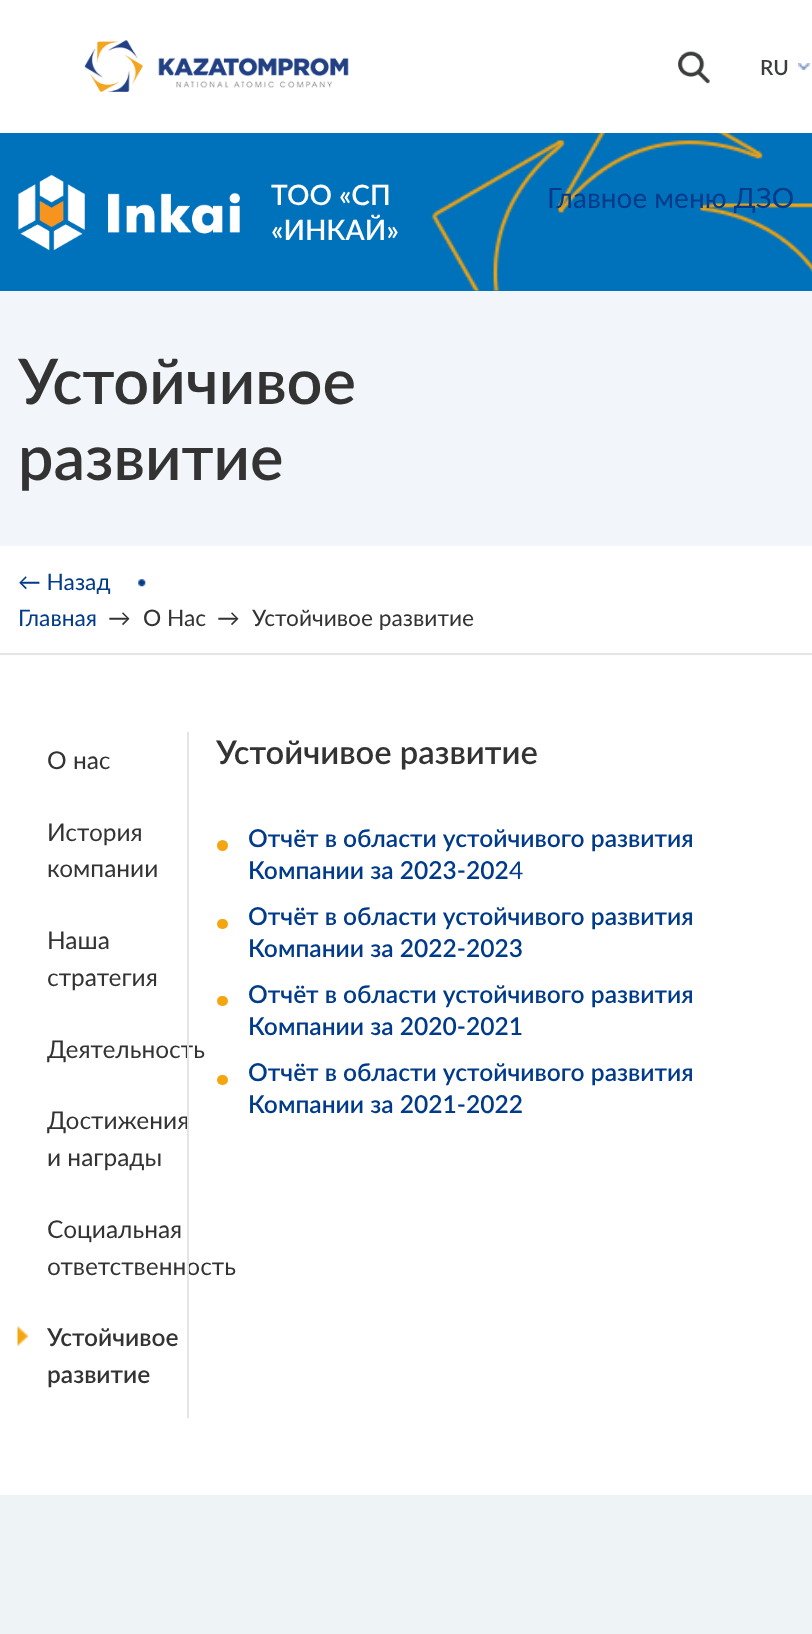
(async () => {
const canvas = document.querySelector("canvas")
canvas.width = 812
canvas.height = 1634
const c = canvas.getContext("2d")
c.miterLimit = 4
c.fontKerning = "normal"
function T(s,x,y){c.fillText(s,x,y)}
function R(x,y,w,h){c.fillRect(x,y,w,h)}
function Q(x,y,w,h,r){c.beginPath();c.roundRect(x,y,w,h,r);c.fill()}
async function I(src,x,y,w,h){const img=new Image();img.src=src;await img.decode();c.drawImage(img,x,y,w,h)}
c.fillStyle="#fff"
R(0,0,812,1634)
await I("1.png",84,40,265,52)
await I("2.png",678,51,32,33)
c.font="600 21px Lato"
c.fillStyle="#3c3d3d"
T("RU",760,75)
await I("3.png",798,63,13,7)
c.fillStyle="#0072bc"
R(0,133,812,158)
await I("4.png",431,133,381,158)
await I("5.png",18,174,222,77)
c.font="600 28px Lato"
c.fillStyle="#fff"
T("ТОО «СП",271,205)
T("«ИНКАЙ»",271,240)
c.font="28px Lato"
c.fillStyle="#003a8a"
T("Главное меню ДЗО",547,208)
c.fillStyle="#f2f5f9"
R(0,291,812,255)
c.font="600 63px Lato"
c.fillStyle="#333"
T("Устойчивое",18,404)
T("развитие",18,480)
c.fillStyle="#e5e5e5"
R(0,653,812,2)
await I("6.png",138,579,8,8)
c.font="22.75px Lato"
c.fillStyle="#003a8a"
T("← Назад",18,590)
T("Главная",18,626)
c.fillStyle="#333"
T("→",108,626)
T("О Нас",143,626)
T("→",217,626)
T("Устойчивое развитие",252,626)
c.font="24.5px Lato"
T("Деятельность",47,1058)
T("Достижения",47,1129)
T("ответственность",47,1275)
c.fillStyle="#e5e5e5"
R(187,732,2,686)
c.fillStyle="#333"
T("О нас",47,769)
T("История",47,841)
T("компании",47,877)
T("Наша",47,949)
T("стратегия",47,986)
T("и награды",47,1166)
T("Социальная",47,1238)
await I("7.png",17,1326,11,20)
c.font="600 24.5px Lato"
T("Устойчивое",47,1346)
T("развитие",47,1383)
c.font="600 32.75px Lato"
T("Устойчивое развитие",216,764)
c.fillStyle="#f4a610"
c.beginPath()
c.arc(222.5,845.5,5.5,0,7)
c.fill()
c.font="600 24.6px Lato"
c.fillStyle="#003a8a"
T("Отчёт в области устойчивого развития",248,847)
T("Компании за 2023-202",248,879)
c.font="24.6px Lato"
T("4",509,879)
c.fillStyle="#f4a610"
Q(217,919,11,10,5)
c.font="600 24.6px Lato"
c.fillStyle="#003a8a"
T("Отчёт в области устойчивого развития",248,925)
T("Компании за 2022-2023",248,957)
c.fillStyle="#f4a610"
Q(217,996,11,10,5)
c.fillStyle="#003a8a"
T("Отчёт в области устойчивого развития",248,1003)
T("Компании за 2020-2021",248,1035)
c.fillStyle="#f4a610"
Q(217,1075,11,10,5)
c.fillStyle="#003a8a"
T("Отчёт в области устойчивого развития",248,1081)
T("Компании за 2021-2022",248,1113)
c.fillStyle="#eef4f6"
R(0,1495,812,139)
})()
